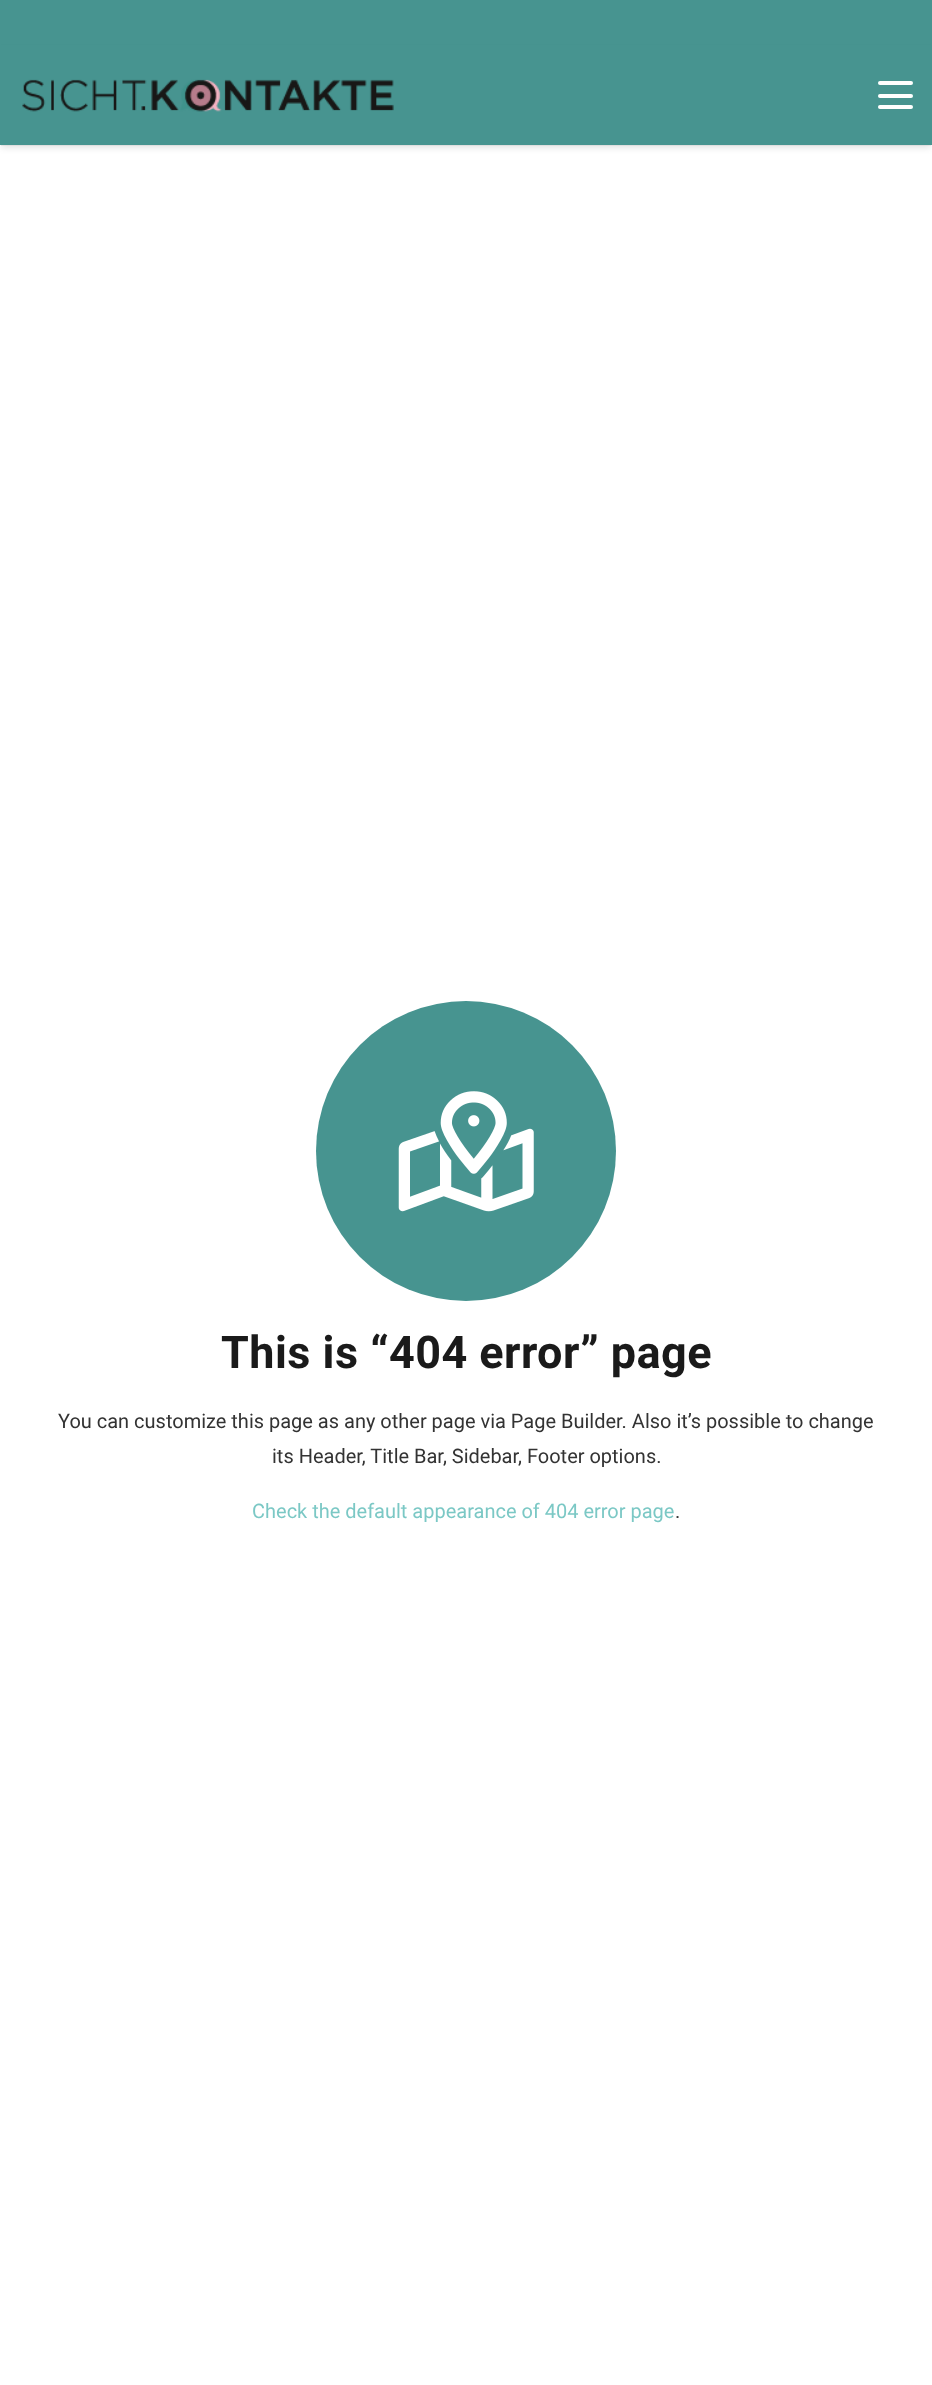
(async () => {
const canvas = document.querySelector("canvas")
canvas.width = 932
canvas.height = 2385
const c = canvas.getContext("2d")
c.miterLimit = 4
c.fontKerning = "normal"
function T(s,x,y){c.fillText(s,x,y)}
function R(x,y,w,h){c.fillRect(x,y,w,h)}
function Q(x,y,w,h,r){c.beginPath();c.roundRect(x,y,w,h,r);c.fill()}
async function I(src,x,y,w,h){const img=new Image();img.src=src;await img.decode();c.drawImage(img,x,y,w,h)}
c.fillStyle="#fff"
R(0,0,932,2385)
c.fillStyle="#479490"
R(0,0,932,45)
c.fillStyle="#0000000d"
c.filter="blur(0.5px)"
c.beginPath()
c.rect(1,49,930,97)
c.fill()
c.filter="none"
c.fillStyle="#0000001a"
c.filter="blur(3px)"
c.beginPath()
c.rect(1,50,930,98)
c.fill()
c.filter="none"
c.fillStyle="#479490"
R(0,45,932,100)
await I("1.png",22,79,372,33)
c.fillStyle="#fff"
Q(878,94,35,4,2)
Q(878,81,35,4,2)
Q(878,105,35,4,2)
c.fillStyle="#479490"
c.beginPath()
c.arc(466,1151,150,0,7)
c.fill()
await I("2.png",398,1091,136,121)
c.letterSpacing="0.45px"
c.font="bold 45px Roboto"
c.fillStyle="#1a1a1a"
T("This is “404 error” page",221,1368)
c.letterSpacing="0px"
c.font="20px Roboto"
c.fillStyle="#333"
T("You can customize this page as any other page via Page Builder. Also it’s possible to change",58,1428)
T("its Header, Title Bar, Sidebar, Footer options.",272,1463)
c.fillStyle="#7bc8c5"
T("Check the default appearance of 404 error page",252,1518)
c.fillStyle="#333"
T(".",675,1518)
})()
